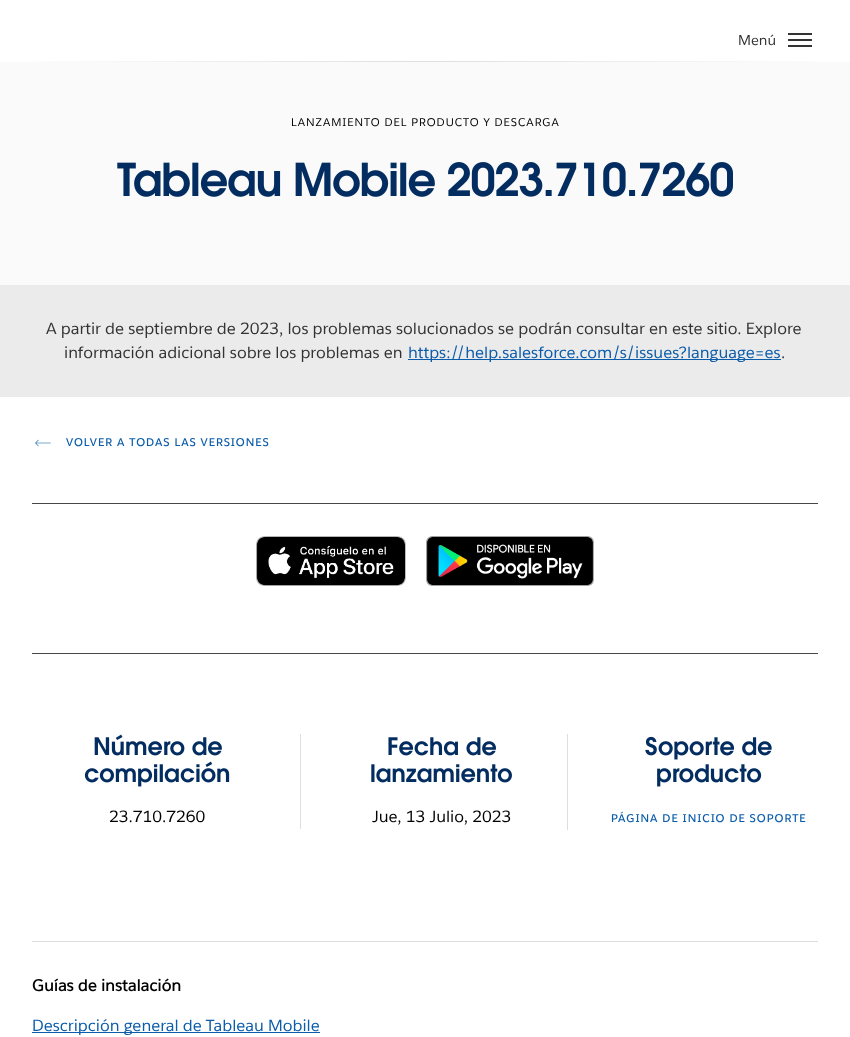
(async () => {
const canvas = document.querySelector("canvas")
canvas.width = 850
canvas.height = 1037
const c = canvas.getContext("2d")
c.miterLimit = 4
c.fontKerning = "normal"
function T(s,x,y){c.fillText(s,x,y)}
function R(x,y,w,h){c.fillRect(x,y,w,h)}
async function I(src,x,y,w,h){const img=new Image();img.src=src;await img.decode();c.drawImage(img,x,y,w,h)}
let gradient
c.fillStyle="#fff"
R(0,0,850,1037)
c.font="14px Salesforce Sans"
c.fillStyle="#333"
T("Menú",738,45)
R(788,39,24,2)
R(788,33,24,2)
R(788,45,24,2)
gradient = c.createLinearGradient(0,62,850,61)
gradient.addColorStop(0,"#fff")
gradient.addColorStop(.5,"#dedede")
gradient.addColorStop(1,"#fff")
c.fillStyle = gradient
R(32,61,786,1)
c.fillStyle="#fafafa"
R(0,62,850,223)
c.letterSpacing="1px"
c.font="11px Salesforce Sans"
c.fillStyle="#000"
T("LANZAMIENTO DEL PRODUCTO Y DESCARGA",291,126)
await I("1.png",117,162,616,35)
c.fillStyle="#ebebeb"
R(0,285,850,112)
c.letterSpacing="0px"
c.font="16px Salesforce Sans"
c.fillStyle="#333"
T("A partir de septiembre de 2023, los problemas solucionados se podrán consultar en este sitio. Explore",46,334)
T("información adicional sobre los problemas en",64,358)
c.fillStyle="#0b5cab"
R(408,359,373,1)
T("https://help.salesforce.com/s/issues?language=es",408,358)
c.fillStyle="#333"
T(".",781,358)
await I("2.png",35,439,16,8)
c.letterSpacing="1px"
c.font="600 11px Salesforce Sans"
c.fillStyle="#0b5cab"
T("VOLVER A TODAS LAS VERSIONES",66,446)
c.fillStyle="#464646"
R(32,503,786,1)
await I("3.png",256,536,150,50)
await I("4.png",426,536,168,50)
R(32,653,786,1)
await I("5.png",94,734,128,22)
await I("6.png",84,761,146,26)
c.letterSpacing="0px"
c.font="16px Salesforce Sans"
c.fillStyle="#000"
T("23.710.7260",109,822)
c.fillStyle="#dedede"
R(300,734,1,95)
await I("7.png",388,737,108,19)
await I("8.png",371,764,141,19)
c.fillStyle="#000"
T("Jue, 13 Julio, 2023",372,822)
c.fillStyle="#dedede"
R(567,734,1,96)
await I("9.png",645,736,127,24)
await I("10.png",657,764,105,23)
c.letterSpacing="1px"
c.font="600 11px Salesforce Sans"
c.fillStyle="#0b5cab"
T("PÁGINA DE INICIO DE SOPORTE",611,822)
c.fillStyle="#dedede"
R(32,941,786,1)
c.letterSpacing="0px"
c.font="bold 16px Salesforce Sans"
c.fillStyle="#000"
T("Guías de instalación",32,991)
c.fillStyle="#0b5cab"
R(32,1032,288,1)
c.font="16px Salesforce Sans"
T("Descripción general de Tableau Mobile",32,1031)
})()
